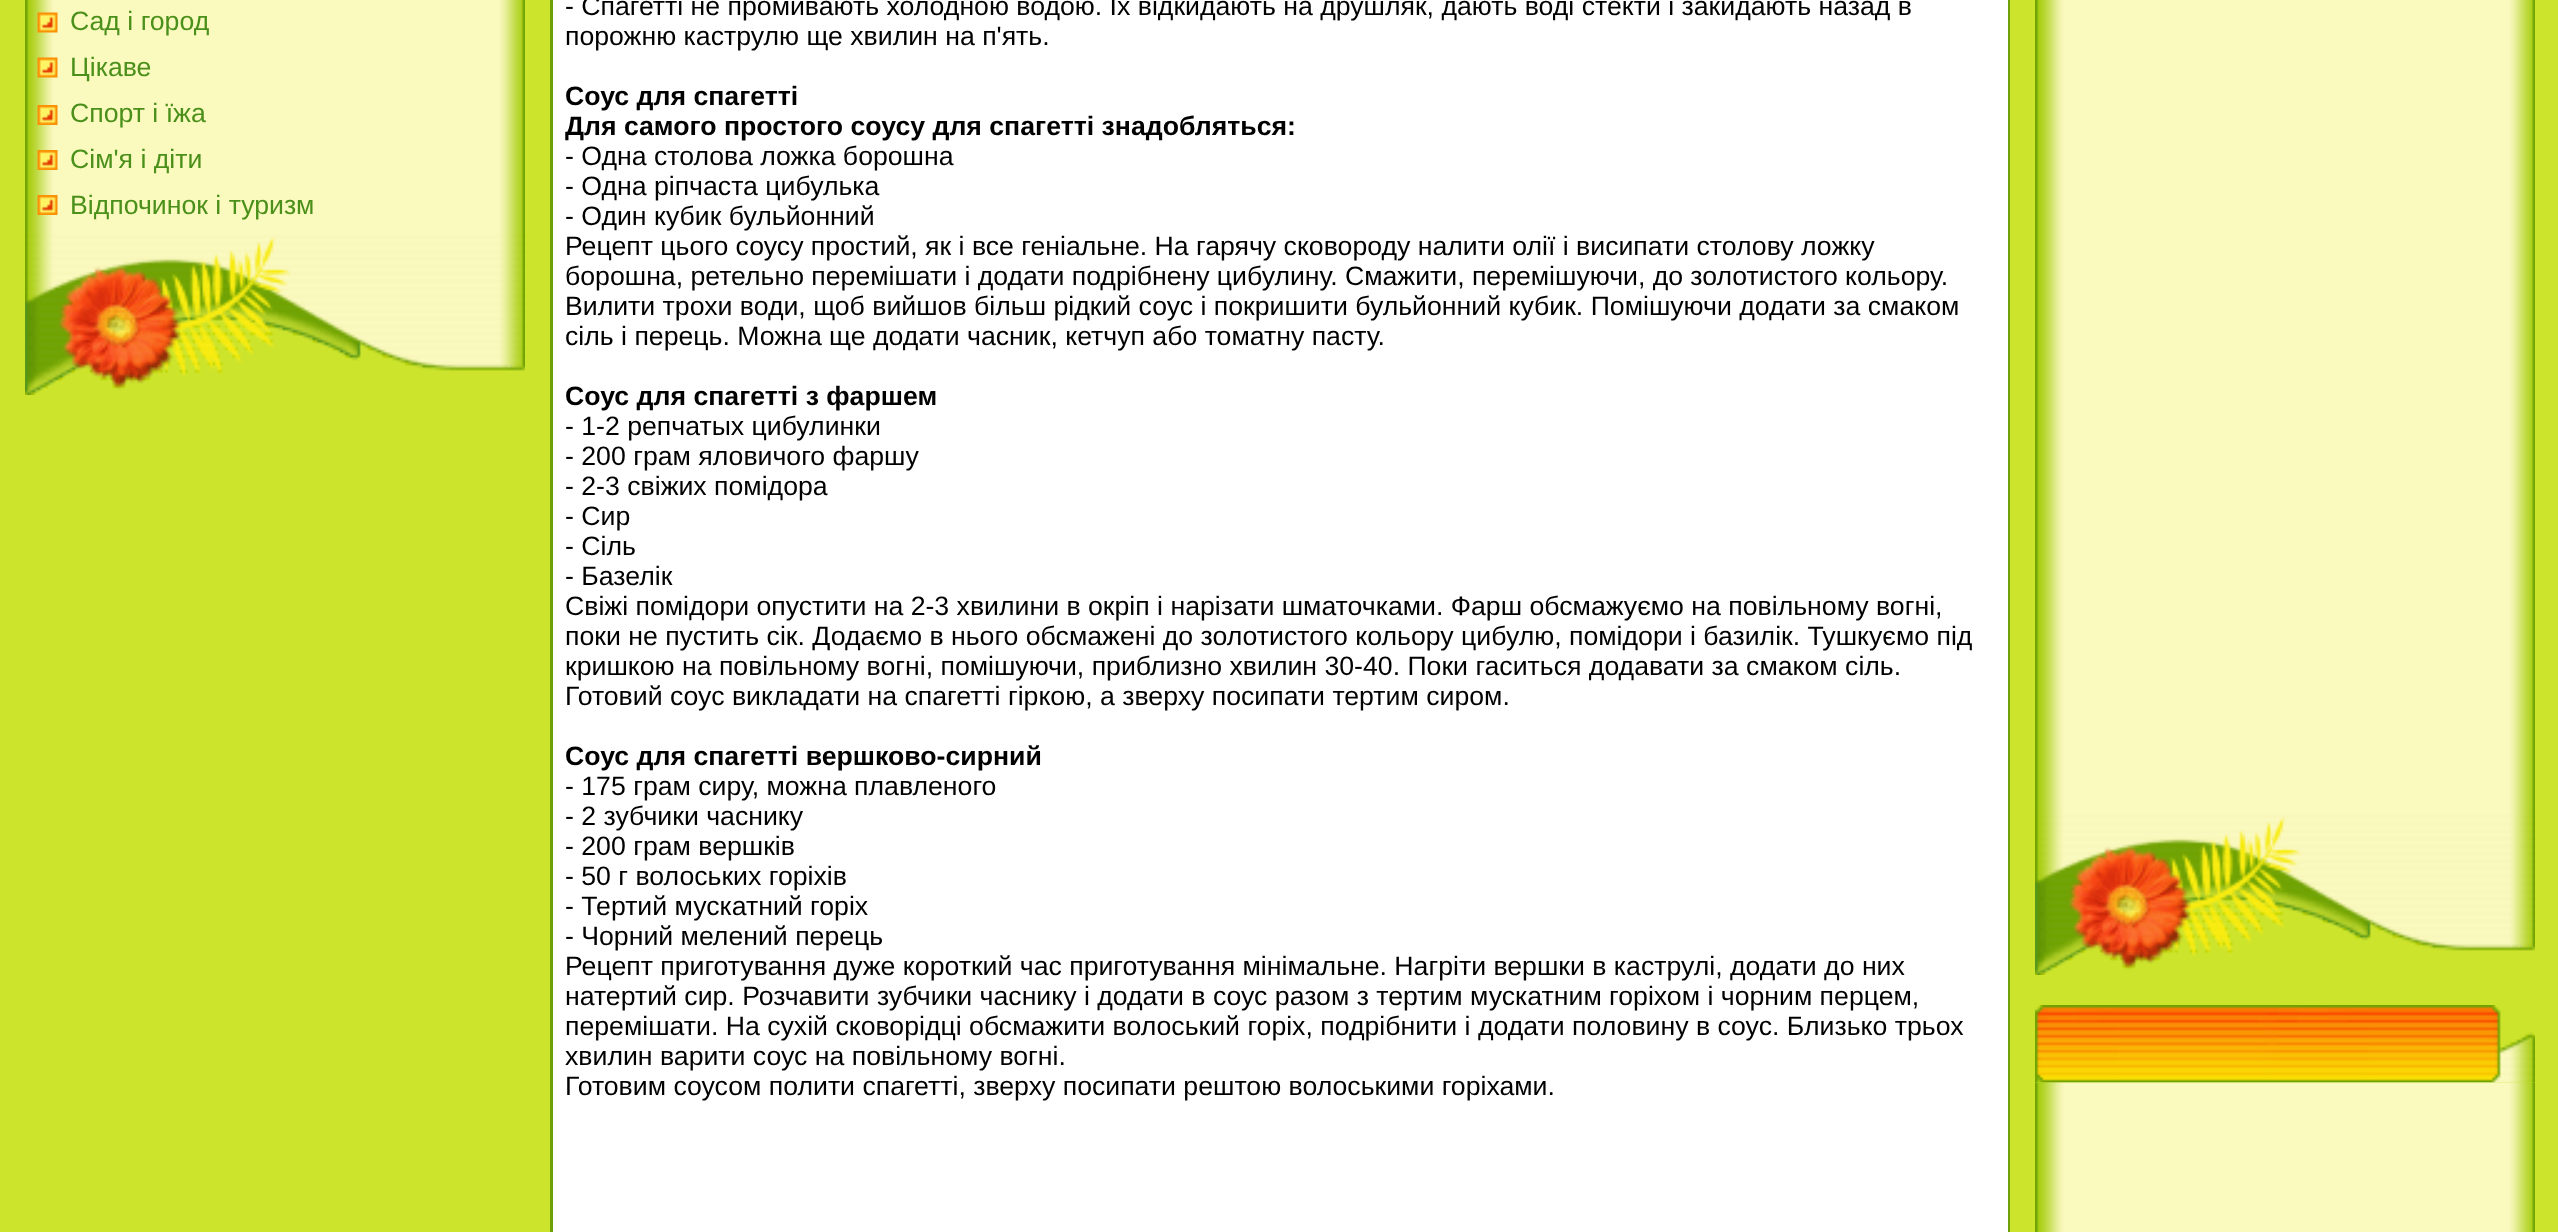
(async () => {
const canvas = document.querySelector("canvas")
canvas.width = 2558
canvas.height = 1232
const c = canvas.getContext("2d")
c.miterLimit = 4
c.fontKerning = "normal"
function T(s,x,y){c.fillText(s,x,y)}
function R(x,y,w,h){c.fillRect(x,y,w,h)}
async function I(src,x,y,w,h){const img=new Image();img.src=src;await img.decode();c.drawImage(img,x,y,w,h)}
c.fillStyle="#cce42c"
R(0,0,2558,1232)
await I("1.png",25,0,500,235)
await I("2.png",37,12,21,21)
c.font="26.67px Liberation Sans"
c.fillStyle="#4b901a"
T("Сад і город",70,30)
await I("2.png",37,57,21,21)
T("Цікаве",70,76)
await I("3.png",37,105,21,20)
T("Спорт і їжа",70,122)
await I("4.png",37,150,21,20)
T("Сім'я і діти",70,168)
await I("3.png",37,195,21,20)
T("Відпочинок і туризм",70,214)
await I("5.png",25,235,500,160)
c.strokeStyle="#6da104"
c.lineWidth=3
c.strokeRect(551.5,-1.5,1457,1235)
c.fillStyle="#fff"
R(553,0,1455,1232)
c.fillStyle="#000"
T("- Спагетті не промивають холодною водою. Їх відкидають на друшляк, дають воді стекти і закидають назад в",565,15)
T("порожню каструлю ще хвилин на п'ять.",565,45)
c.font="bold 26.67px Liberation Sans"
T("Соус для спагетті",565,105)
T("Для самого простого соусу для спагетті знадобляться:",565,135)
c.font="26.67px Liberation Sans"
T("- Одна столова ложка борошна",565,165)
T("- Одна ріпчаста цибулька",565,195)
T("- Один кубик бульйонний",565,225)
T("Рецепт цього соусу простий, як і все геніальне. На гарячу сковороду налити олії і висипати столову ложку",565,255)
c.wordSpacing="-0.1px"
T("борошна, ретельно перемішати і додати подрібнену цибулину. Смажити, перемішуючи, до золотистого кольору.",565,285)
c.wordSpacing="0px"
T("Вилити трохи води, щоб вийшов більш рідкий соус і покришити бульйонний кубик. Помішуючи додати за смаком",565,315)
T("сіль і перець. Можна ще додати часник, кетчуп або томатну пасту.",565,345)
c.font="bold 26.67px Liberation Sans"
T("Соус для спагетті з фаршем",565,405)
c.font="26.67px Liberation Sans"
T("- 1-2 репчатых цибулинки",565,435)
T("- 200 грам яловичого фаршу",565,465)
T("- 2-3 свіжих помідора",565,495)
T("- Сир",565,525)
T("- Сіль",565,555)
T("- Базелік",565,585)
T("Свіжі помідори опустити на 2-3 хвилини в окріп і нарізати шматочками. Фарш обсмажуємо на повільному вогні,",565,615)
T("поки не пустить сік. Додаємо в нього обсмажені до золотистого кольору цибулю, помідори і базилік. Тушкуємо під",565,645)
T("кришкою на повільному вогні, помішуючи, приблизно хвилин 30-40. Поки гаситься додавати за смаком сіль.",565,675)
T("Готовий соус викладати на спагетті гіркою, а зверху посипати тертим сиром.",565,705)
c.font="bold 26.67px Liberation Sans"
T("Соус для спагетті вершково-сирний",565,765)
c.font="26.67px Liberation Sans"
T("- 175 грам сиру, можна плавленого",565,795)
T("- 2 зубчики часнику",565,825)
T("- 200 грам вершків",565,855)
T("- 50 г волоських горіхів",565,885)
T("- Тертий мускатний горіх",565,915)
T("- Чорний мелений перець",565,945)
T("Рецепт приготування дуже короткий час приготування мінімальне. Нагріти вершки в каструлі, додати до них",565,975)
T("натертий сир. Розчавити зубчики часнику і додати в соус разом з тертим мускатним горіхом і чорним перцем,",565,1005)
T("перемішати. На сухій сковорідці обсмажити волоський горіх, подрібнити і додати половину в соус. Близько трьох",565,1035)
T("хвилин варити соус на повільному вогні.",565,1065)
T("Готовим соусом полити спагетті, зверху посипати рештою волоськими горіхами.",565,1095)
await I("6.png",2035,0,500,815)
await I("7.png",2035,815,500,160)
await I("8.png",2035,1005,500,78)
await I("9.png",2035,1082,500,150)
})()
